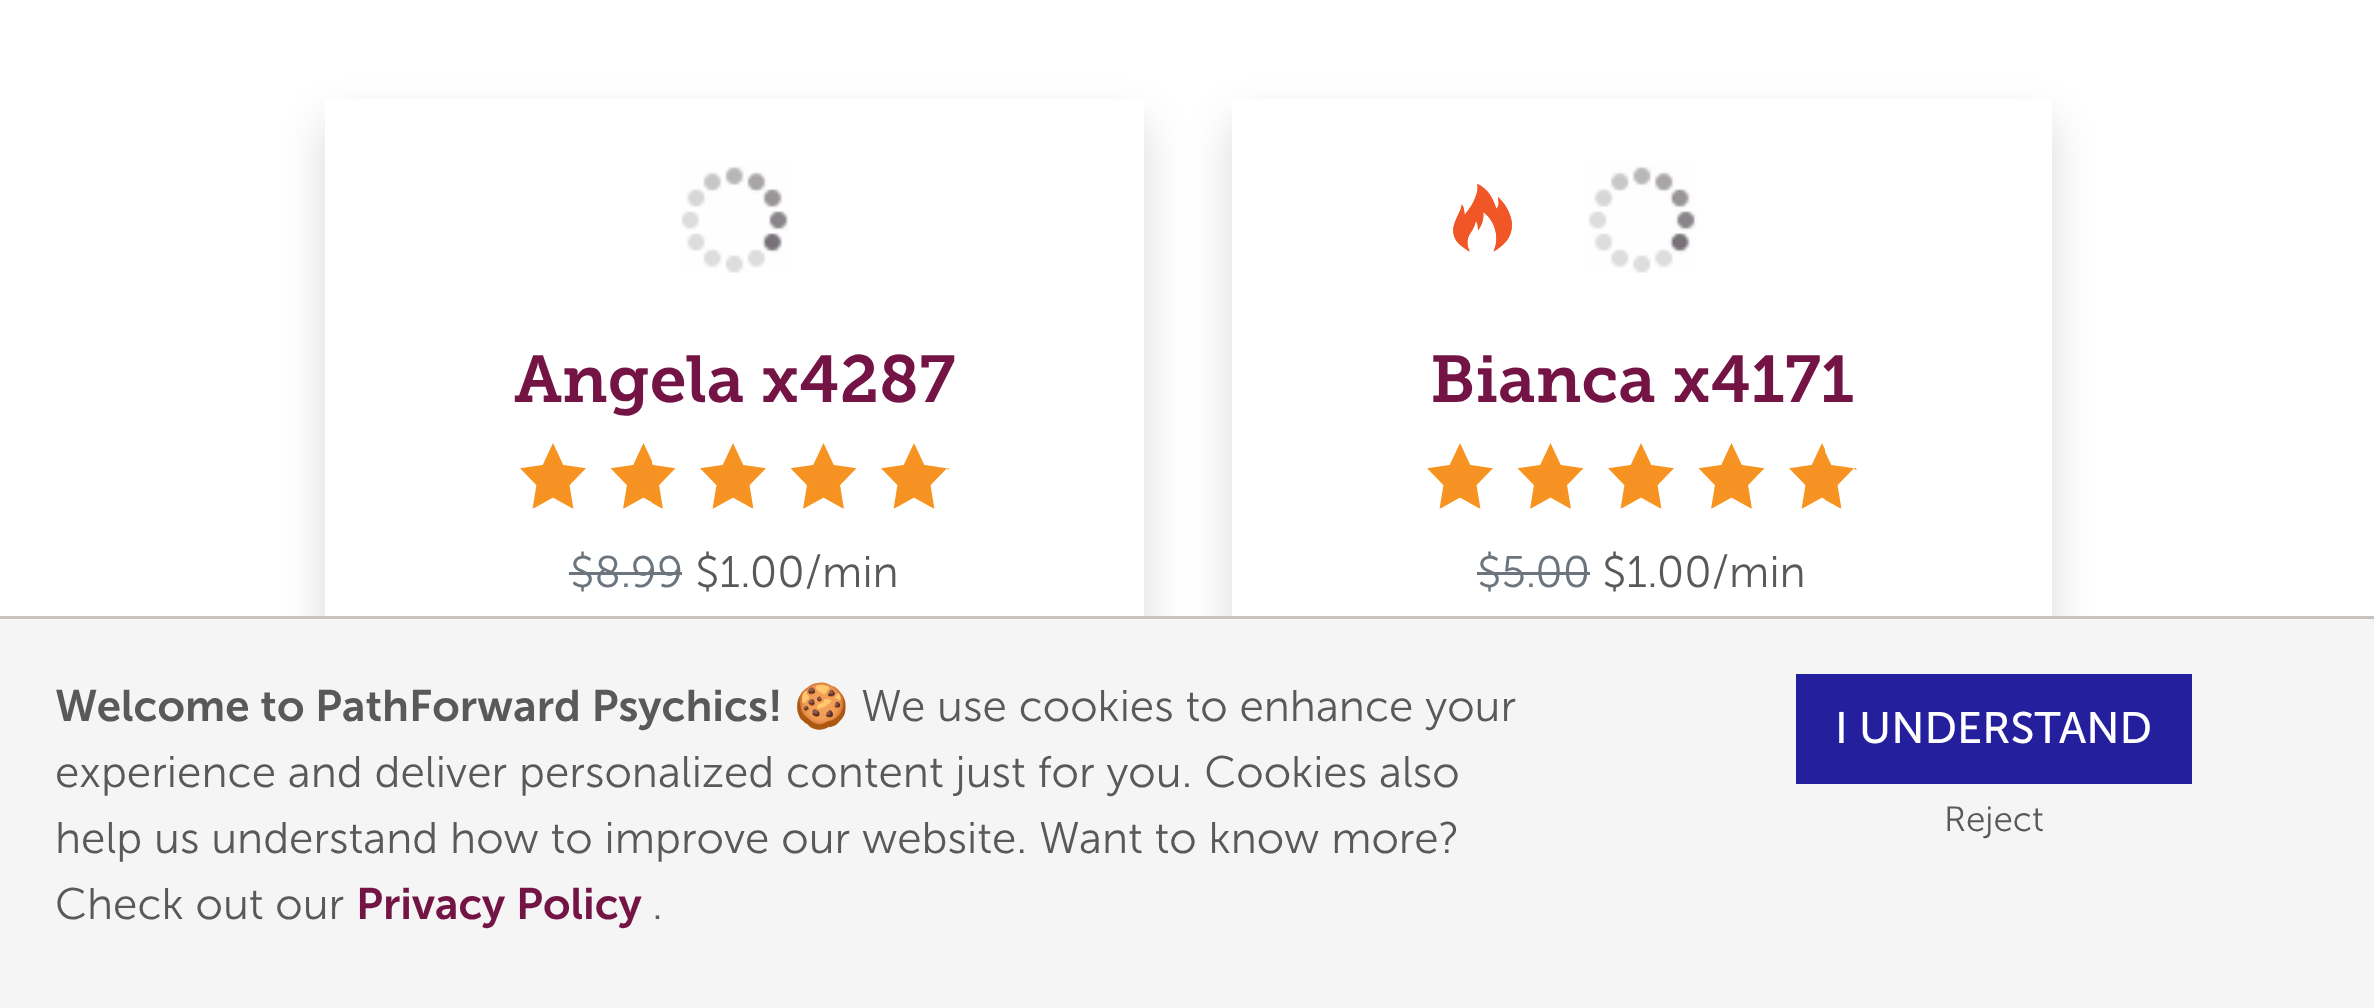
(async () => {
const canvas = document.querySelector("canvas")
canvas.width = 2374
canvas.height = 1008
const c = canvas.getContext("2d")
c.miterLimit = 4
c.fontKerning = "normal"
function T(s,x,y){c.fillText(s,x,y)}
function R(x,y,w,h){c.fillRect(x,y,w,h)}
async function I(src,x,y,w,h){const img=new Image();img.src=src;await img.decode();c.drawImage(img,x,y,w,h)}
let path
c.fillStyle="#fff"
R(0,0,2374,1008)
c.save()
path = new Path2D("M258 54h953v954h-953zm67 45h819v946h-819z")
c.clip(path,"evenodd")
c.fillStyle="#00000026"
c.filter="blur(22px)"
c.beginPath()
c.rect(325,121,819,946)
c.fill()
c.filter="none"
c.restore()
await I("1.png",681,165,108,108)
c.font="600 66px 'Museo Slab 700'"
c.fillStyle="#731445"
T("Angela x4287",514,402)
await I("2.png",519,442,430,67)
c.font="300 44px 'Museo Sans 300'"
c.fillStyle="#6c757d"
T("$8.99",570,587)
R(569,572,113,3)
c.fillStyle="#58595b"
T("$1.00/min",695,587)
c.fillStyle="#00000026"
c.filter="blur(22px)"
c.beginPath()
c.rect(1232,121,820,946)
c.fill()
c.filter="none"
c.fillStyle="#fff"
R(1232,99,820,517)
await I("3.png",1453,184,59,68)
await I("4.png",1588,165,109,108)
c.font="600 66px 'Museo Slab 700'"
c.fillStyle="#731445"
T("Bianca x4171",1430,402)
await I("5.png",1427,442,430,67)
c.font="300 44px 'Museo Sans 300'"
c.fillStyle="#6c757d"
T("$5.00",1477,587)
R(1477,572,113,3)
c.fillStyle="#58595b"
T("$1.00/min",1602,587)
c.fillStyle="#f5f5f5"
R(0,619,2374,389)
c.fillStyle="#c8c3bf"
R(0,616,2374,3)
c.font="600 44px 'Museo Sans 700'"
c.fillStyle="#58595b"
T("Welcome to PathForward Psychics!",55,721)
c.font="44px Noto Color Emoji"
T("🍪",794,721)
c.font="300 44px 'Museo Sans 300'"
T("We use cookies to enhance your",861,721)
T("experience and deliver personalized content just for you. Cookies also",55,787)
T("help us understand how to improve our website. Want to know more?",55,853)
T("Check out our",55,919)
c.font="600 44px 'Museo Sans 700'"
c.fillStyle="#731445"
T("Privacy Policy",356,919)
c.font="300 44px 'Museo Sans 300'"
c.fillStyle="#58595b"
T(".",652,919)
c.fillStyle="#241f9d"
R(1796,674,396,110)
c.font="44px 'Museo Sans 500'"
c.fillStyle="#fff"
T("I UNDERSTAND",1835,743)
c.font="300 35px 'Museo Sans 300'"
c.fillStyle="#58595b"
T("Reject",1944,831)
})()
